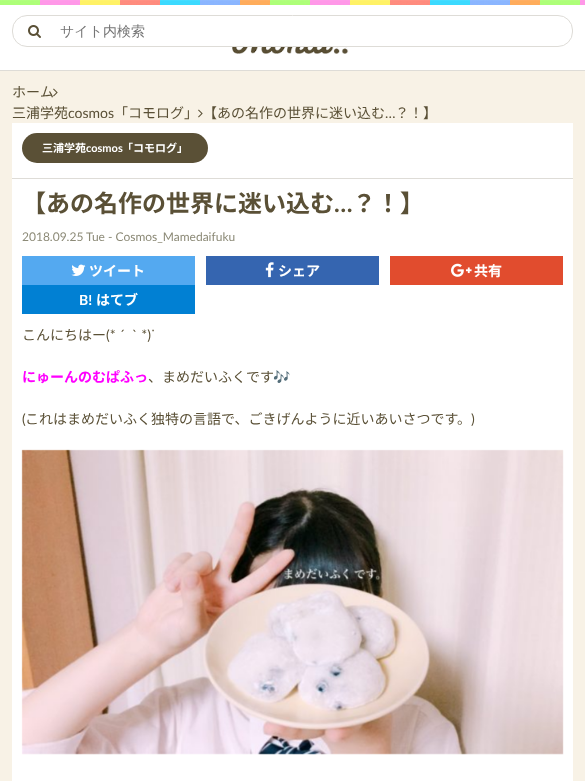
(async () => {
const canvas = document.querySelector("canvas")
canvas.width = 585
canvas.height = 781
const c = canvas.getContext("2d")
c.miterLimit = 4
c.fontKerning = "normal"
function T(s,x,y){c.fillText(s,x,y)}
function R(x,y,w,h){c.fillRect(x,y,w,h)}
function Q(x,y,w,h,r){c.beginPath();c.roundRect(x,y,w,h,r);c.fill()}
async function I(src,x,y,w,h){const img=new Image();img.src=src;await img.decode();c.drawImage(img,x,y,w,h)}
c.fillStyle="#f8f2e6"
R(0,0,585,781)
c.fillStyle="#fff"
R(0,5,585,65)
await I("1.png",0,0,585,5)
c.fillStyle="#dedcd7"
R(0,70,585,1)
c.beginPath()
c.roundRect(12.5,15.5,560,31,14.5)
c.strokeStyle="#dedcd7"
c.stroke()
await I("2.png",28,25,13,13)
c.font="500 14px WenQuanYi Zen Hei"
c.fillStyle="#757575"
T("サイト内検索",60,36)
await I("3.png",232,47,117,7)
c.font="14px Noto Sans JP"
c.fillStyle="#5a5036"
T("ホーム",12,97)
await I("4.png",53,88,5,9)
T("三浦学苑",12,118)
c.font="14px Lato"
T("cosmos",68,118)
c.font="14px Noto Sans JP"
T("「コモログ」",114,118)
await I("4.png",198,109,5,9)
T("【あの名作の世界に迷い込む",203,118)
c.font="14px Lato"
T("…",385,118)
c.font="14px Noto Sans JP"
T("？！】",395,118)
c.fillStyle="#fff"
R(12,123,561,658)
c.fillStyle="#5a5036"
Q(22,133,186,30,15)
c.font="bold 11px Noto Sans JP"
c.fillStyle="#fff"
T("三浦学苑",42,152)
c.font="bold 11px Lato"
T("cosmos",86,152)
c.font="bold 11px Noto Sans JP"
T("「コモログ」",122,152)
c.fillStyle="#dedcd7"
R(12,178,561,1)
c.font="bold 24px Noto Sans JP"
c.fillStyle="#5a5036"
T("【あの名作の世界に迷い込む",22,212)
c.font="bold 24px Lato"
T("…",334,212)
c.font="bold 24px Noto Sans JP"
T("？！】",352,212)
c.font="12px Lato"
c.fillStyle="#8c8a77"
T("2018.09.25 Tue - Cosmos_Mamedaifuku",22,241)
c.fillStyle="#54a9f0"
R(22,256,173,29)
await I("5.png",71,264,15,12)
c.font="bold 14px Noto Sans JP"
c.fillStyle="#fff"
T("ツイート",89,276)
c.fillStyle="#3565b0"
R(206,256,173,29)
await I("6.png",265,262,9,16)
c.fillStyle="#fff"
T("シェア",278,276)
c.fillStyle="#e14c2e"
R(390,256,173,29)
await I("7.png",451,263,21,14)
c.fillStyle="#fff"
T("共有",474,276)
c.fillStyle="#0180d3"
R(22,285,173,29)
c.font="bold 14px Lato"
c.fillStyle="#fff"
T("B!",79,305)
c.font="bold 14px Noto Sans JP"
T("はてブ",96,305)
c.font="14px Noto Sans JP"
c.fillStyle="#5a5036"
T("こんにちはー",22,340)
c.font="14px Lato"
T("(* ´  ` *)",106,340)
c.font="14px DejaVu Sans"
T("ᐝ",151,340)
c.font="bold 14px Noto Sans JP"
c.fillStyle="#f0f"
T("にゅーんのむぱふっ",22,382)
c.font="14px Noto Sans JP"
c.fillStyle="#5a5036"
T("、まめだいふくです",148,382)
c.font="14px Noto Color Emoji"
T("🎶",273,382)
c.font="14px Lato"
T("(",22,424)
c.font="14px Noto Sans JP"
T("これはまめだいふく独特の言語で、ごきげんように近いあいさつです。",25,424)
c.font="14px Lato"
T(")",471,424)
await I("8.png",21,449,543,306)
})()
